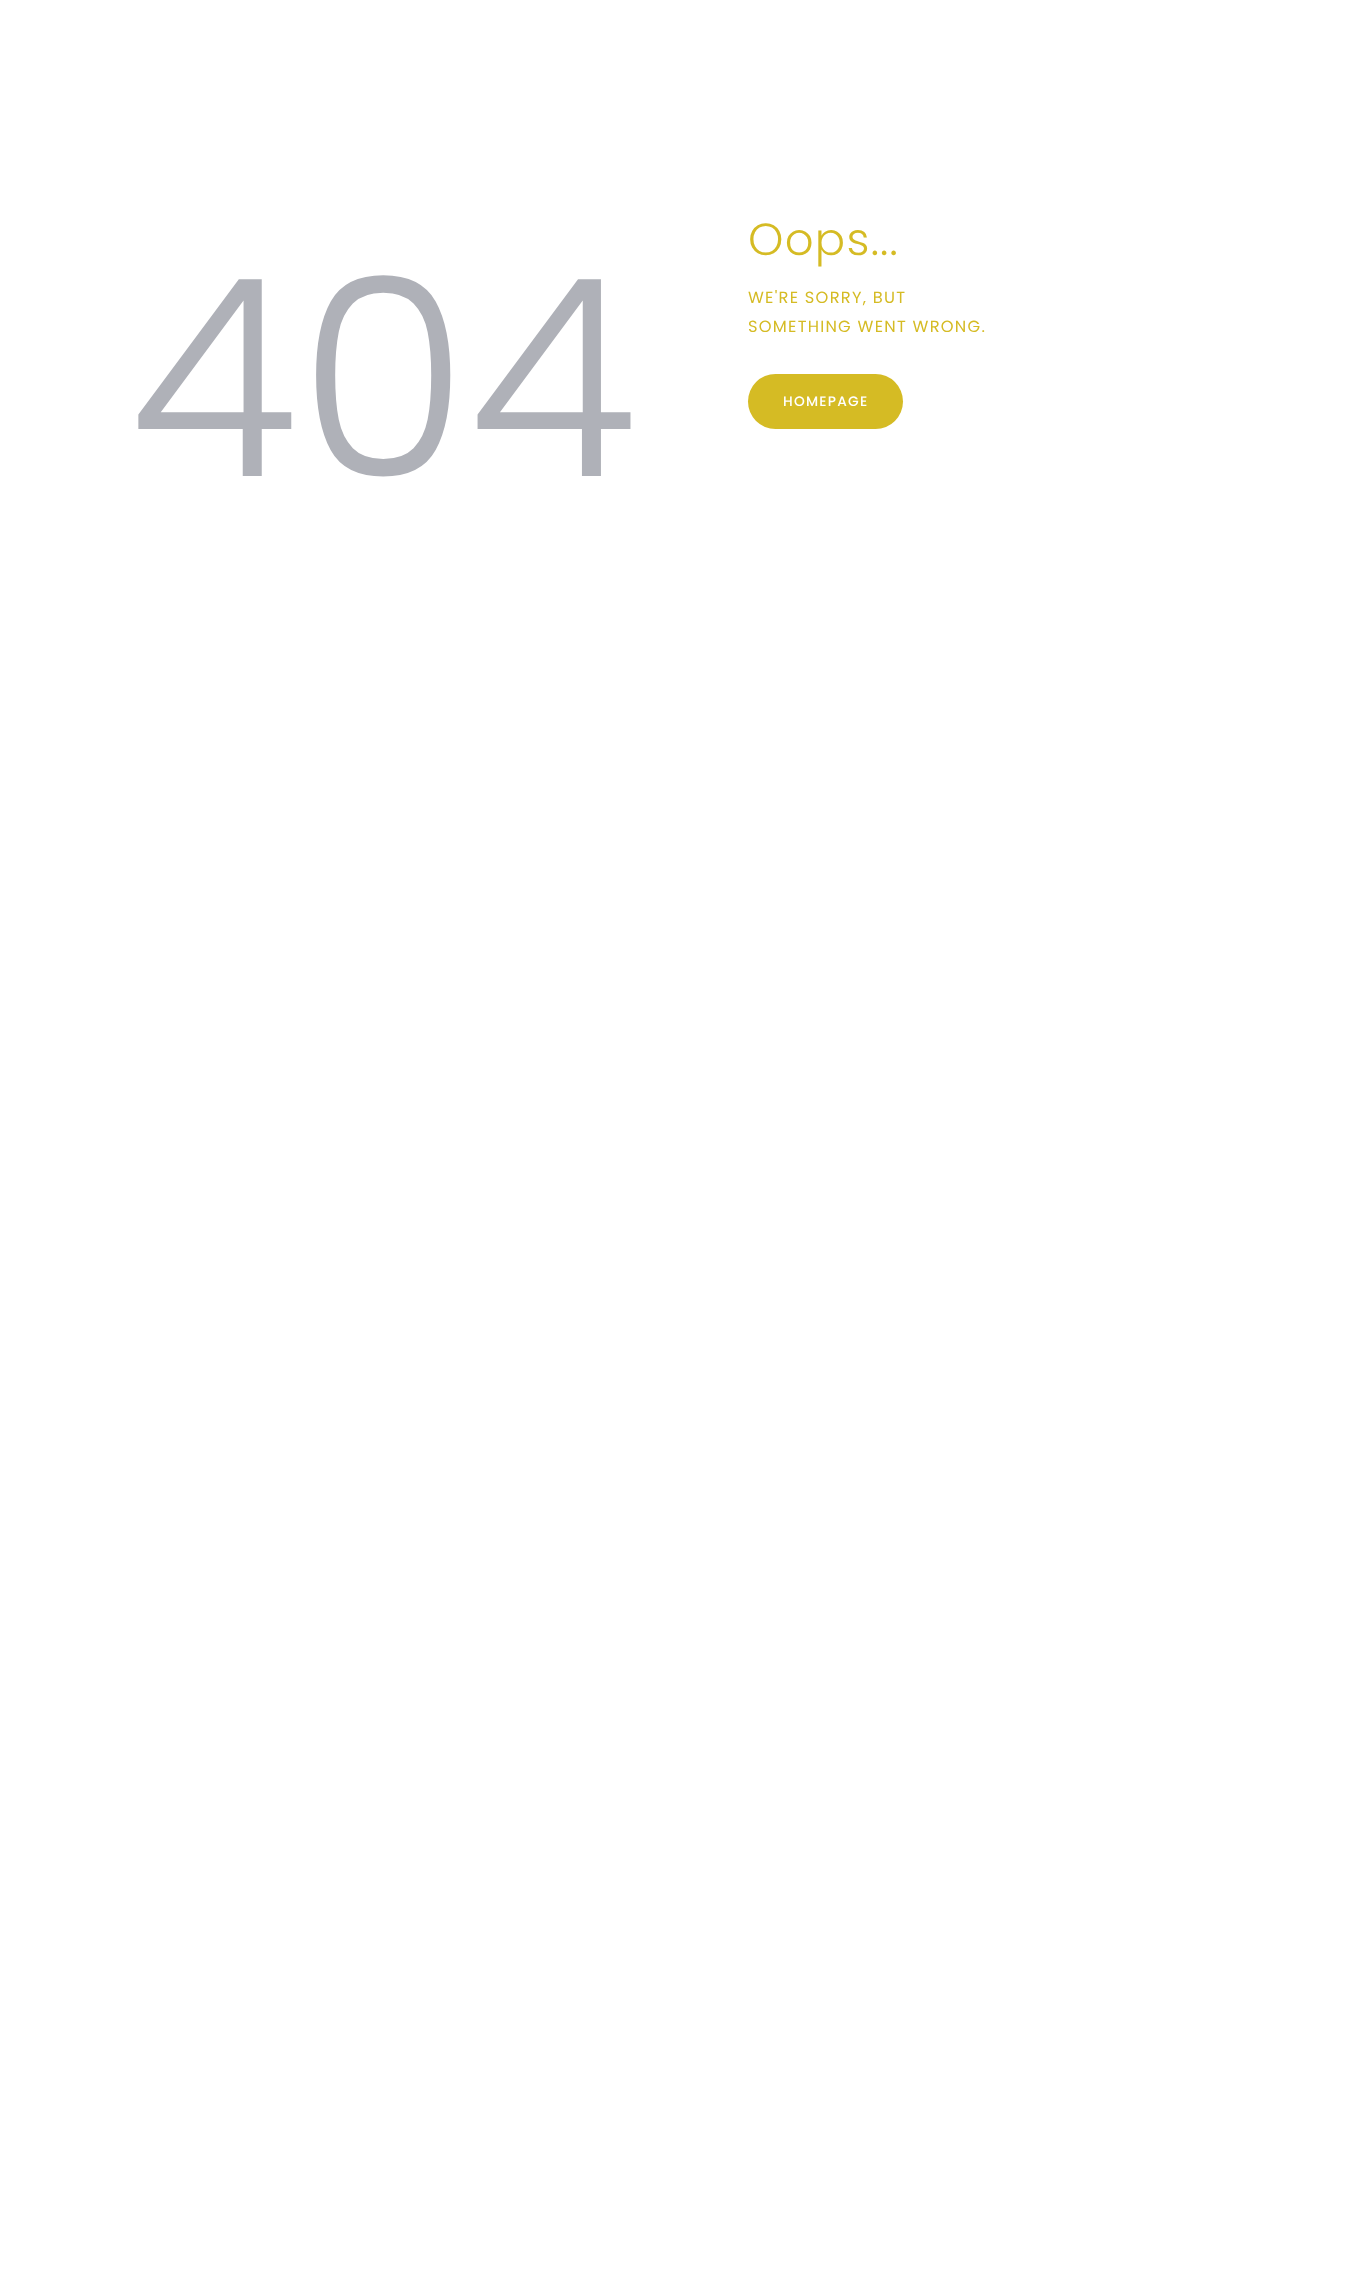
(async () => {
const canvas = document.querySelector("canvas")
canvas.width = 1369
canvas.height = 2294
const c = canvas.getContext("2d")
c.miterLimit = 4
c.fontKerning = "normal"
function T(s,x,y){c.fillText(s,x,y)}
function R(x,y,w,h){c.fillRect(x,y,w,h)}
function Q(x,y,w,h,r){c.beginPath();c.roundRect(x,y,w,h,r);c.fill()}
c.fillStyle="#fff"
R(0,0,1369,2294)
c.font="300 276px Poppins"
c.fillStyle="#afb1b8"
T("404",129,476)
c.letterSpacing="1.25px"
c.font="300 45px Poppins"
c.fillStyle="#d5bb24"
T("Oops...",748,255)
c.font="16.25px Poppins"
T("WE'RE SORRY, BUT",748,303)
T("SOMETHING WENT WRONG.",748,332)
Q(748,374,155,55,27.5)
c.font="500 13.75px Poppins"
c.fillStyle="#fff"
T("HOMEPAGE",783,406)
})()
